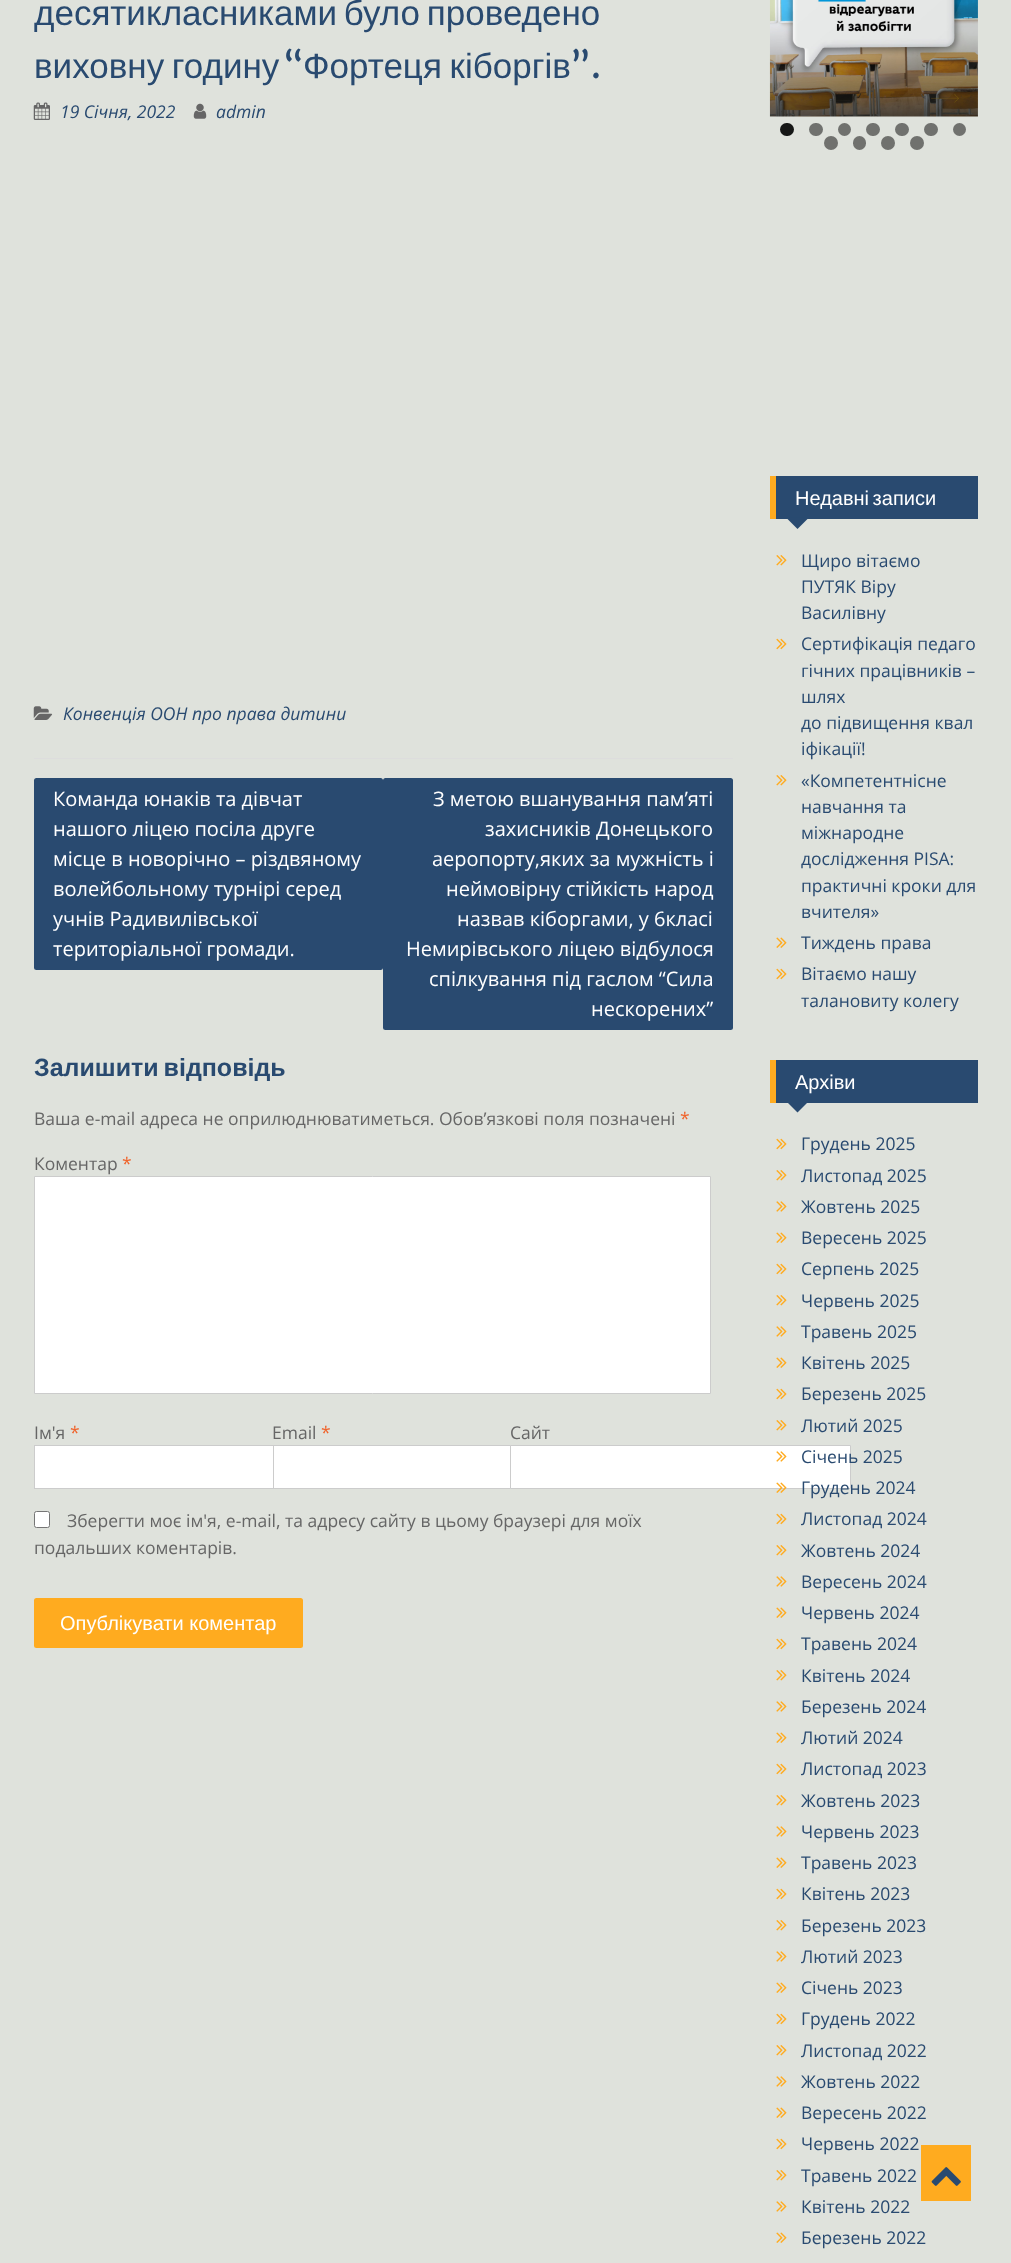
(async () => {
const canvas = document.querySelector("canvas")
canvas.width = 1011
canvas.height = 2263
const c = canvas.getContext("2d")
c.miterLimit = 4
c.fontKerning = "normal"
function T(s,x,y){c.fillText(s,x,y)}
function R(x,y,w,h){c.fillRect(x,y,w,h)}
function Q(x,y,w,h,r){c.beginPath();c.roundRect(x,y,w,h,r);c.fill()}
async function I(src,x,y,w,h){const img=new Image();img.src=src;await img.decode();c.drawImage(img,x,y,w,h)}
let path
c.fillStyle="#dfe2dc"
R(0,0,1011,2263)
c.fillStyle="#ddd"
R(34,758,699,1)
c.wordSpacing="-3px"
c.font="35px Liberation Sans"
c.fillStyle="#294a70"
T("десятикласниками було проведено",34,25)
c.wordSpacing="-2px"
T("виховну годину",34,78)
c.wordSpacing="0px"
c.font="35px Merriweather Sans"
T("“",283,78)
c.wordSpacing="-2px"
c.font="35px Liberation Sans"
T("Фортеця кіборгів",303,78)
c.wordSpacing="0px"
c.font="35px Merriweather Sans"
T("”.",571,78)
await I("1.png",33,102,17,18)
c.font="italic 17.5px Open Sans"
T("19 Січня, 2022",60,118)
await I("2.png",193,103,14,16)
T("admin",216,118)
await I("3.png",33,706,20,14)
T("Конвенція ООН про права дитини",63,720)
Q(34,778,349,192,2.5)
c.font="20px Open Sans"
c.fillStyle="#fff"
T("Команда юнаків та дівчат",53,806)
T("нашого ліцею посіла друге",53,836)
T("місце в новорічно – різдвяному",53,866)
T("волейбольному турнірі серед",53,896)
T("учнів Радивилівської",53,926)
T("територіальної громади.",53,956)
c.fillStyle="#294a70"
Q(383,778,350,252,2.5)
c.fillStyle="#fff"
T("З метою вшанування пам’яті",433,806)
T("захисників Донецького",485,836)
T("аеропорту,яких за мужність і",432,866)
T("неймовірну стійкість народ",446,896)
T("назвав кіборгами, у 6класі",457,926)
T("Немирівського ліцею відбулося",406,956)
T("спілкування під гаслом “Сила",429,986)
T("нескорених”",591,1016)
c.wordSpacing="-2px"
c.font="bold 25px Liberation Sans"
c.fillStyle="#294a70"
T("Залишити відповідь",34,1076)
c.wordSpacing="0px"
c.font="17.5px Open Sans"
c.fillStyle="#666"
T("Ваша e-mail адреса не оприлюднюватиметься. Обов’язкові поля позначені",34,1125)
c.fillStyle="#f0632b"
T("*",680,1125)
c.fillStyle="#666"
T("Коментар",34,1170)
c.fillStyle="#f0632b"
T("*",122,1170)
c.fillStyle="#fff"
c.beginPath()
c.rect(34.5,1176.5,676,217)
c.fill()
c.strokeStyle="#ccc"
c.stroke()
c.fillStyle="#666"
T("Ім'я",34,1439)
c.fillStyle="#f0632b"
T("*",70,1439)
c.fillStyle="#fff"
R(35,1446,238,42)
c.strokeRect(34.5,1445.5,340,43)
c.fillStyle="#666"
T("Email",272,1439)
c.fillStyle="#f0632b"
T("*",321,1439)
c.fillStyle="#fff"
R(274,1446,236,42)
c.strokeRect(273.5,1445.5,340,43)
c.fillStyle="#666"
T("Сайт",510,1439)
c.fillStyle="#fff"
c.beginPath()
c.rect(510.5,1445.5,340,43)
c.fill()
c.stroke()
c.beginPath()
c.roundRect(34.5,1511.5,15,16,2)
c.fill()
c.strokeStyle="#767676"
c.stroke()
c.fillStyle="#666"
T("Зберегти моє ім'я, e-mail, та адресу сайту в цьому браузері для моїх",67,1527)
T("подальших коментарів.",34,1554)
c.fillStyle="#ffab1f"
Q(34,1598,269,50,2.5)
c.font="20px Liberation Sans"
c.fillStyle="#fff"
T("Опублікувати коментар",60,1630)
await I("4.png",769,0,209,117)
c.fillStyle="#161716"
Q(780,123,14,13,6.5)
c.fillStyle="#70716e"
Q(809,123,14,13,6.5)
c.beginPath()
c.arc(844.5,129.5,6.5,0,7)
c.fill()
Q(866,123,14,13,6.5)
Q(895,123,14,13,6.5)
Q(924,123,14,13,6.5)
c.beginPath()
c.arc(959.5,129.5,6.5,0,7)
c.fill()
c.beginPath()
c.arc(831,143,7,0,7)
c.fill()
Q(853,136,13,14,6.5)
c.beginPath()
c.arc(888,143,7,0,7)
c.fill()
c.beginPath()
c.arc(917,143,7,0,7)
c.fill()
c.fillStyle="#294a70"
R(776,476,202,43)
c.fillStyle="#ffab1f"
R(770,476,6,43)
c.wordSpacing="-2px"
c.fillStyle="#fff"
T("Недавні записи",795,505)
c.fillStyle="#294a70"
path = new Path2D("M786 517.5h23l-11.5 11.5z")
c.fill(path)
await I("5.png",776,555,11,11)
c.wordSpacing="0px"
c.font="17.5px Open Sans"
T("Щиро вітаємо",801,567)
T("ПУТЯК Віру",801,593)
T("Василівну",801,619)
await I("6.png",776,638,11,12)
T("Сертифікація педаго",801,650)
T("гічних працівників –",801,677)
T("шлях",801,703)
T("до підвищення квал",801,729)
T("іфікації!",801,755)
await I("5.png",776,775,11,11)
T("«Компетентнісне",801,787)
T("навчання та",801,813)
T("міжнародне",801,839)
T("дослідження PISA:",801,865)
T("практичні кроки для",801,892)
T("вчителя»",801,918)
await I("7.png",776,937,11,11)
T("Тиждень права",801,949)
await I("6.png",776,968,11,12)
T("Вітаємо нашу",801,980)
T("талановиту колегу",801,1007)
R(776,1060,202,43)
c.fillStyle="#ffab1f"
R(770,1060,6,43)
c.font="20px Liberation Sans"
c.fillStyle="#fff"
T("Архіви",795,1089)
c.fillStyle="#294a70"
path = new Path2D("M786 1101h23l-11.5 11.5z")
c.fill(path)
await I("6.png",776,1138,11,12)
c.font="17.5px Open Sans"
T("Грудень 2025",801,1150)
await I("5.png",776,1170,11,11)
T("Листопад 2025",801,1182)
await I("8.png",776,1201,11,11)
T("Жовтень 2025",801,1213)
await I("7.png",776,1232,11,11)
T("Вересень 2025",801,1244)
await I("6.png",776,1263,11,12)
T("Серпень 2025",801,1275)
await I("5.png",776,1295,11,11)
T("Червень 2025",801,1307)
await I("8.png",776,1326,11,11)
T("Травень 2025",801,1338)
await I("7.png",776,1357,11,11)
T("Квітень 2025",801,1369)
await I("6.png",776,1388,11,12)
T("Березень 2025",801,1400)
await I("5.png",776,1420,11,11)
T("Лютий 2025",801,1432)
await I("9.png",776,1451,11,11)
T("Січень 2025",801,1463)
await I("10.png",776,1482,11,11)
T("Грудень 2024",801,1494)
await I("6.png",776,1513,11,12)
T("Листопад 2024",801,1525)
await I("5.png",776,1545,11,11)
T("Жовтень 2024",801,1557)
await I("8.png",776,1576,11,11)
T("Вересень 2024",801,1588)
await I("7.png",776,1607,11,11)
T("Червень 2024",801,1619)
await I("6.png",776,1638,11,12)
T("Травень 2024",801,1650)
await I("5.png",776,1670,11,11)
T("Квітень 2024",801,1682)
await I("8.png",776,1701,11,11)
T("Березень 2024",801,1713)
await I("7.png",776,1732,11,11)
T("Лютий 2024",801,1744)
await I("6.png",776,1763,11,12)
T("Листопад 2023",801,1775)
await I("5.png",776,1795,11,11)
T("Жовтень 2023",801,1807)
await I("8.png",776,1826,11,11)
T("Червень 2023",801,1838)
await I("7.png",776,1857,11,11)
T("Травень 2023",801,1869)
await I("6.png",776,1888,11,12)
T("Квітень 2023",801,1900)
await I("5.png",776,1920,11,11)
T("Березень 2023",801,1932)
await I("8.png",776,1951,11,11)
T("Лютий 2023",801,1963)
await I("7.png",776,1982,11,11)
T("Січень 2023",801,1994)
await I("6.png",776,2013,11,12)
T("Грудень 2022",801,2025)
await I("5.png",776,2045,11,11)
T("Листопад 2022",801,2057)
await I("8.png",776,2076,11,11)
T("Жовтень 2022",801,2088)
await I("7.png",776,2107,11,11)
T("Вересень 2022",801,2119)
await I("6.png",776,2138,11,12)
T("Червень 2022",801,2150)
await I("5.png",776,2170,11,11)
T("Травень 2022",801,2182)
await I("8.png",776,2201,11,11)
T("Квітень 2022",801,2213)
await I("7.png",776,2232,11,11)
T("Березень 2022",801,2244)
c.fillStyle="#ffab1f"
R(921,2145,50,56)
await I("11.png",931,2167,30,19)
})()
